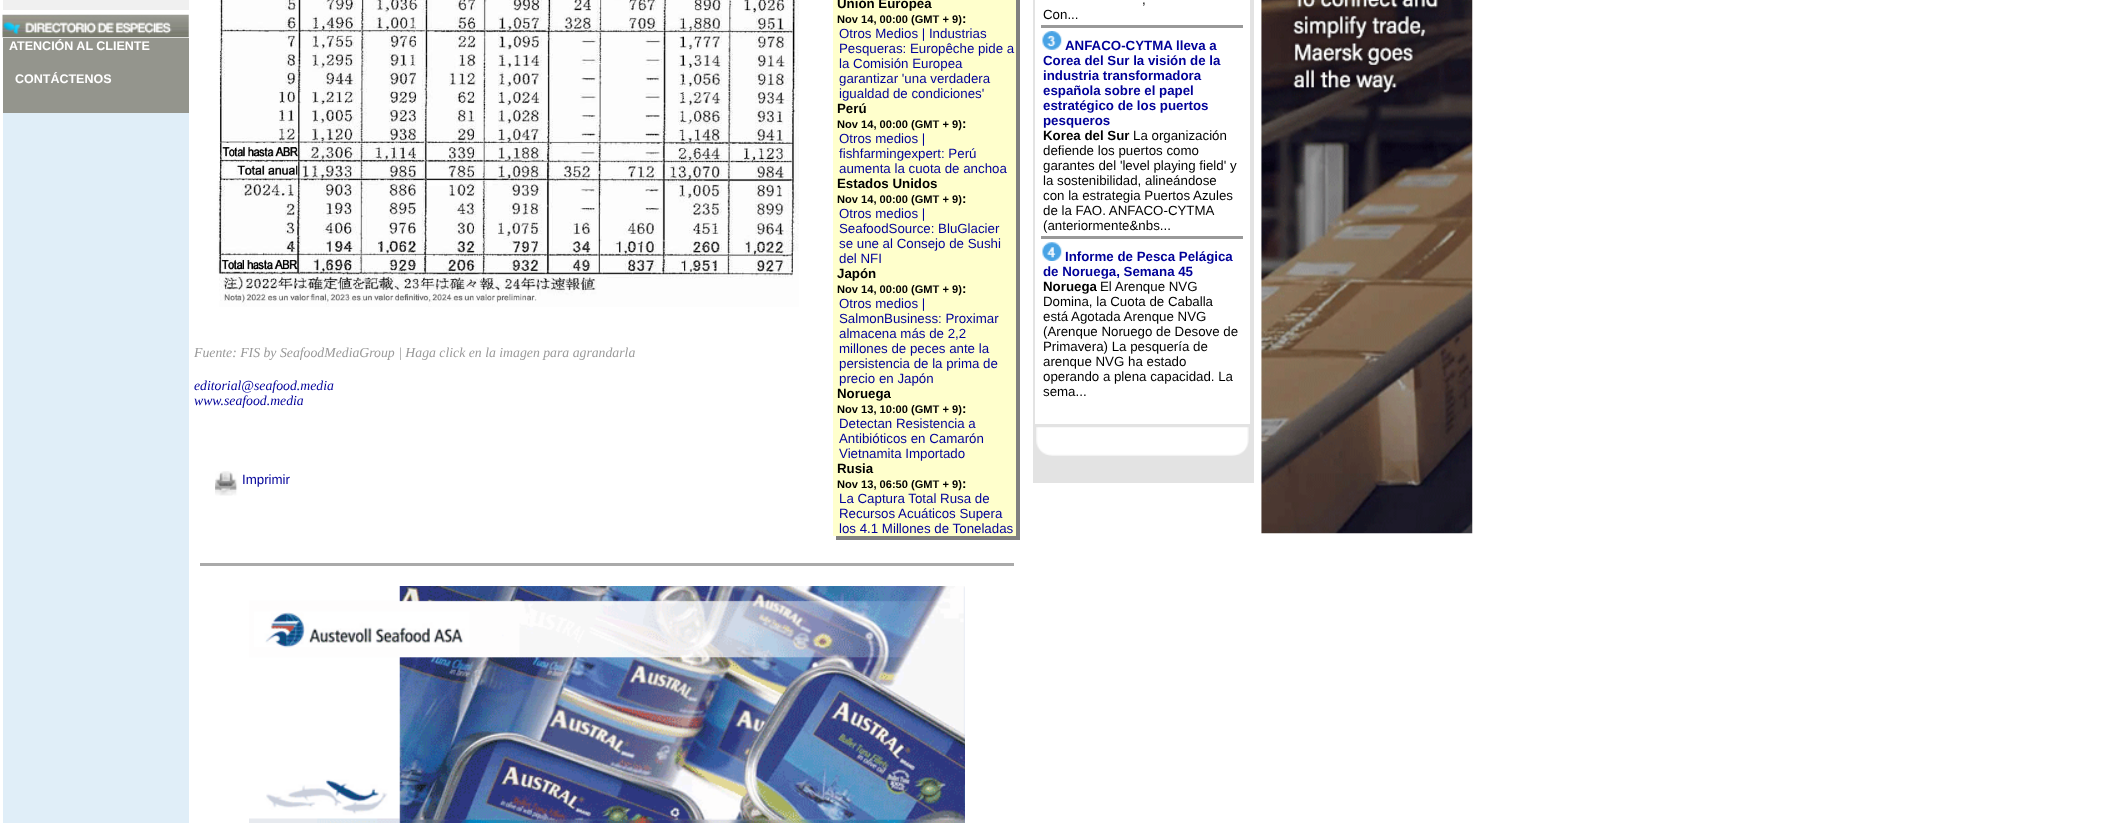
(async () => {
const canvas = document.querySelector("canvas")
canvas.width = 2107
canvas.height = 823
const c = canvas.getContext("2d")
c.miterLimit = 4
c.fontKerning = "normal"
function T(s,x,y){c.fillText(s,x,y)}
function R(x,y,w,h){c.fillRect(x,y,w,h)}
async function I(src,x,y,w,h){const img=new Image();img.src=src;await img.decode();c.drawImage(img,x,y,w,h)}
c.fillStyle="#fff"
R(0,0,2107,823)
c.fillStyle="#e0eef8"
R(3,113,186,710)
c.fillStyle="#f0f0f0"
R(3,0,186,10)
await I("1.png",2,14,187,24)
c.fillStyle="#94958d"
R(3,38,186,75)
c.font="bold 12.5px Liberation Sans"
c.fillStyle="#fff"
T("ATENCIÓN AL CLIENTE",9,50)
T("CONTÁCTENOS",15,83)
await I("2.png",217,0,582,307)
c.font="italic 13.75px Liberation Serif"
c.fillStyle="#999"
T("Fuente: FIS by SeafoodMediaGroup | Haga click en la imagen para agrandarla",194,357)
c.fillStyle="#009"
T("editorial@seafood.media",194,390)
T("www.seafood.media",194,405)
await I("3.png",215,471,23,25)
c.font="13.3px Liberation Sans"
T("Imprimir",242,484)
c.fillStyle="#ffc"
R(833,0,183,536)
c.font="bold 13.3px Liberation Sans"
c.fillStyle="#000"
T("Unión Europea",837,8)
c.font="bold 11.1px Liberation Sans"
T("Nov 14, 00:00 (GMT + 9)",837,23)
c.font="bold 13.3px Liberation Sans"
T(":",962,23)
c.font="13.3px Liberation Sans"
c.fillStyle="#009"
T("Otros Medios | Industrias",839,38)
T("Pesqueras: Europêche pide a",839,53)
T("la Comisión Europea",839,68)
T("garantizar 'una verdadera",839,83)
T("igualdad de condiciones'",839,98)
c.font="bold 13.3px Liberation Sans"
c.fillStyle="#000"
T("Perú",837,113)
c.font="bold 11.1px Liberation Sans"
T("Nov 14, 00:00 (GMT + 9)",837,128)
c.font="bold 13.3px Liberation Sans"
T(":",962,128)
c.font="13.3px Liberation Sans"
c.fillStyle="#009"
T("Otros medios |",839,143)
T("fishfarmingexpert: Perú",839,158)
T("aumenta la cuota de anchoa",839,173)
c.font="bold 13.3px Liberation Sans"
c.fillStyle="#000"
T("Estados Unidos",837,188)
c.font="bold 11.1px Liberation Sans"
T("Nov 14, 00:00 (GMT + 9)",837,203)
c.font="bold 13.3px Liberation Sans"
T(":",962,203)
c.font="13.3px Liberation Sans"
c.fillStyle="#009"
T("Otros medios |",839,218)
T("SeafoodSource: BluGlacier",839,233)
T("se une al Consejo de Sushi",839,248)
T("del NFI",839,263)
c.font="bold 13.3px Liberation Sans"
c.fillStyle="#000"
T("Japón",837,278)
c.font="bold 11.1px Liberation Sans"
T("Nov 14, 00:00 (GMT + 9)",837,293)
c.font="bold 13.3px Liberation Sans"
T(":",962,293)
c.font="13.3px Liberation Sans"
c.fillStyle="#009"
T("Otros medios |",839,308)
T("SalmonBusiness: Proximar",839,323)
T("almacena más de 2,2",839,338)
T("millones de peces ante la",839,353)
T("persistencia de la prima de",839,368)
T("precio en Japón",839,383)
c.font="bold 13.3px Liberation Sans"
c.fillStyle="#000"
T("Noruega",837,398)
c.font="bold 11.1px Liberation Sans"
T("Nov 13, 10:00 (GMT + 9)",837,413)
c.font="bold 13.3px Liberation Sans"
T(":",962,413)
c.font="13.3px Liberation Sans"
c.fillStyle="#009"
T("Detectan Resistencia a",839,428)
T("Antibióticos en Camarón",839,443)
T("Vietnamita Importado",839,458)
c.font="bold 13.3px Liberation Sans"
c.fillStyle="#000"
T("Rusia",837,473)
c.font="bold 11.1px Liberation Sans"
T("Nov 13, 06:50 (GMT + 9)",837,488)
c.font="bold 13.3px Liberation Sans"
T(":",962,488)
c.font="13.3px Liberation Sans"
c.fillStyle="#009"
T("La Captura Total Rusa de",839,503)
T("Recursos Acuáticos Supera",839,518)
T("los 4.1 Millones de Toneladas",839,533)
c.fillStyle="#808080"
R(1016,0,4,536)
R(836,536,184,4)
c.fillStyle="#aaa"
R(200,563,814,3)
await I("4.png",249,586,716,237)
c.fillStyle="#e3e3e3"
R(1033,0,221,483)
c.fillStyle="#fff"
R(1035,0,215,424)
c.fillStyle="#000"
T(",",1142,4)
T("Con...",1043,19)
c.fillStyle="#999"
R(1041,25,202,3)
await I("5.png",1042,31,20,19)
c.font="bold 13.3px Liberation Sans"
c.fillStyle="#009"
T("ANFACO-CYTMA lleva a",1065,50)
T("Corea del Sur la visión de la",1043,65)
T("industria transformadora",1043,80)
T("española sobre el papel",1043,95)
T("estratégico de los puertos",1043,110)
T("pesqueros",1043,125)
c.fillStyle="#000"
T("Korea del Sur",1043,140)
c.font="13.3px Liberation Sans"
T("La organización",1133,140)
T("defiende los puertos como",1043,155)
T("garantes del 'level playing field' y",1043,170)
T("la sostenibilidad, alineándose",1043,185)
T("con la estrategia Puertos Azules",1043,200)
T("de la FAO. ANFACO-CYTMA",1043,215)
T("(anteriormente&nbs...",1043,230)
c.fillStyle="#999"
R(1041,236,202,3)
await I("6.png",1042,242,20,19)
c.font="bold 13.3px Liberation Sans"
c.fillStyle="#009"
T("Informe de Pesca Pelágica",1065,261)
T("de Noruega, Semana 45",1043,276)
c.fillStyle="#000"
T("Noruega",1043,291)
c.font="13.3px Liberation Sans"
T("El Arenque NVG",1100,291)
T("Domina, la Cuota de Caballa",1043,306)
T("está Agotada Arenque NVG",1043,321)
T("(Arenque Noruego de Desove de",1043,336)
T("Primavera) La pesquería de",1043,351)
T("arenque NVG ha estado",1043,366)
T("operando a plena capacidad. La",1043,381)
T("sema...",1043,396)
await I("7.png",1036,427,213,29)
await I("8.png",1261,0,212,534)
})()
